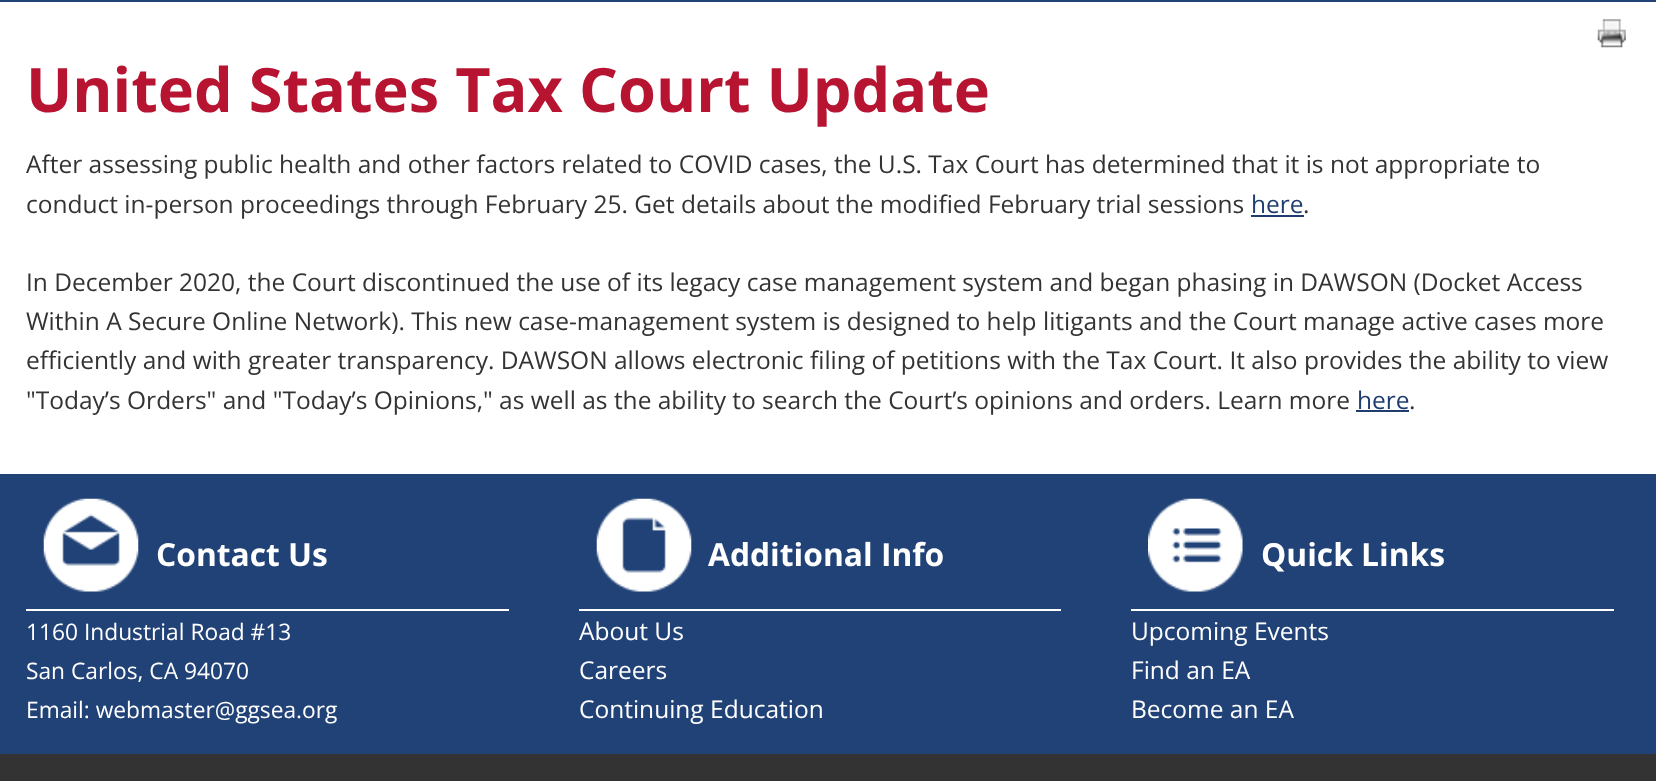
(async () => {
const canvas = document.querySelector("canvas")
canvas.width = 1656
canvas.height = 781
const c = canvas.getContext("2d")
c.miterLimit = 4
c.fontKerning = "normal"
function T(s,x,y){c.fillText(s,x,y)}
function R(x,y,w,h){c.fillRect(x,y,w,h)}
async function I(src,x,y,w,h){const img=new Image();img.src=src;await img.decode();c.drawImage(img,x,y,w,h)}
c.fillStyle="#fff"
R(0,0,1656,781)
c.fillStyle="#214277"
R(0,0,1656,2)
await I("1.png",1597,19,29,29)
c.font="bold 61.25px Open Sans"
c.fillStyle="#b71431"
T("United States Tax Court Update",26,112)
c.font="24.5px Open Sans"
c.fillStyle="#333"
T("After assessing public health and other factors related to COVID cases, the U.S. Tax Court has determined that it is not appropriate to",26,173)
T("conduct in-person proceedings through February 25. Get details about the modified February trial sessions",26,213)
c.fillStyle="#1f3e6f"
T("here",1251,213)
R(1251,215,53,2)
c.fillStyle="#333"
T(".",1303,213)
T("In December 2020, the Court discontinued the use of its legacy case management system and began phasing in DAWSON (Docket Access",26,291)
T("Within A Secure Online Network). This new case-management system is designed to help litigants and the Court manage active cases more",26,330)
T("efficiently and with greater transparency. DAWSON allows electronic filing of petitions with the Tax Court. It also provides the ability to view",26,369)
T("\"Today’s Orders\" and \"Today’s Opinions,\" as well as the ability to search the Court’s opinions and orders. Learn more",26,409)
c.fillStyle="#1f3e6f"
T("here",1357,409)
R(1356,410,53,2)
c.fillStyle="#333"
T(".",1409,409)
c.fillStyle="#214277"
R(0,474,1656,280)
c.fillStyle="#fff"
R(26,609,483,2)
await I("2.png",43,498,96,94)
c.font="bold 31.75px Open Sans"
T("Contact Us",156,566)
c.font="22.75px Open Sans"
T("1160 Industrial Road #13",26,640)
T("San Carlos, CA 94070",26,679)
T("Email: webmaster@ggsea.org",26,718)
R(579,609,482,2)
await I("3.png",596,498,96,94)
c.font="bold 31.75px Open Sans"
T("Additional Info",708,566)
c.font="24.5px Open Sans"
T("About Us",579,640)
T("Careers",579,679)
T("Continuing Education",579,718)
R(1131,609,483,2)
await I("4.png",1148,498,95,94)
c.font="bold 31.75px Open Sans"
T("Quick Links",1261,566)
c.font="24.5px Open Sans"
T("Upcoming Events",1131,640)
T("Find an EA",1131,679)
T("Become an EA",1131,718)
c.fillStyle="#333"
R(0,754,1656,27)
})()
